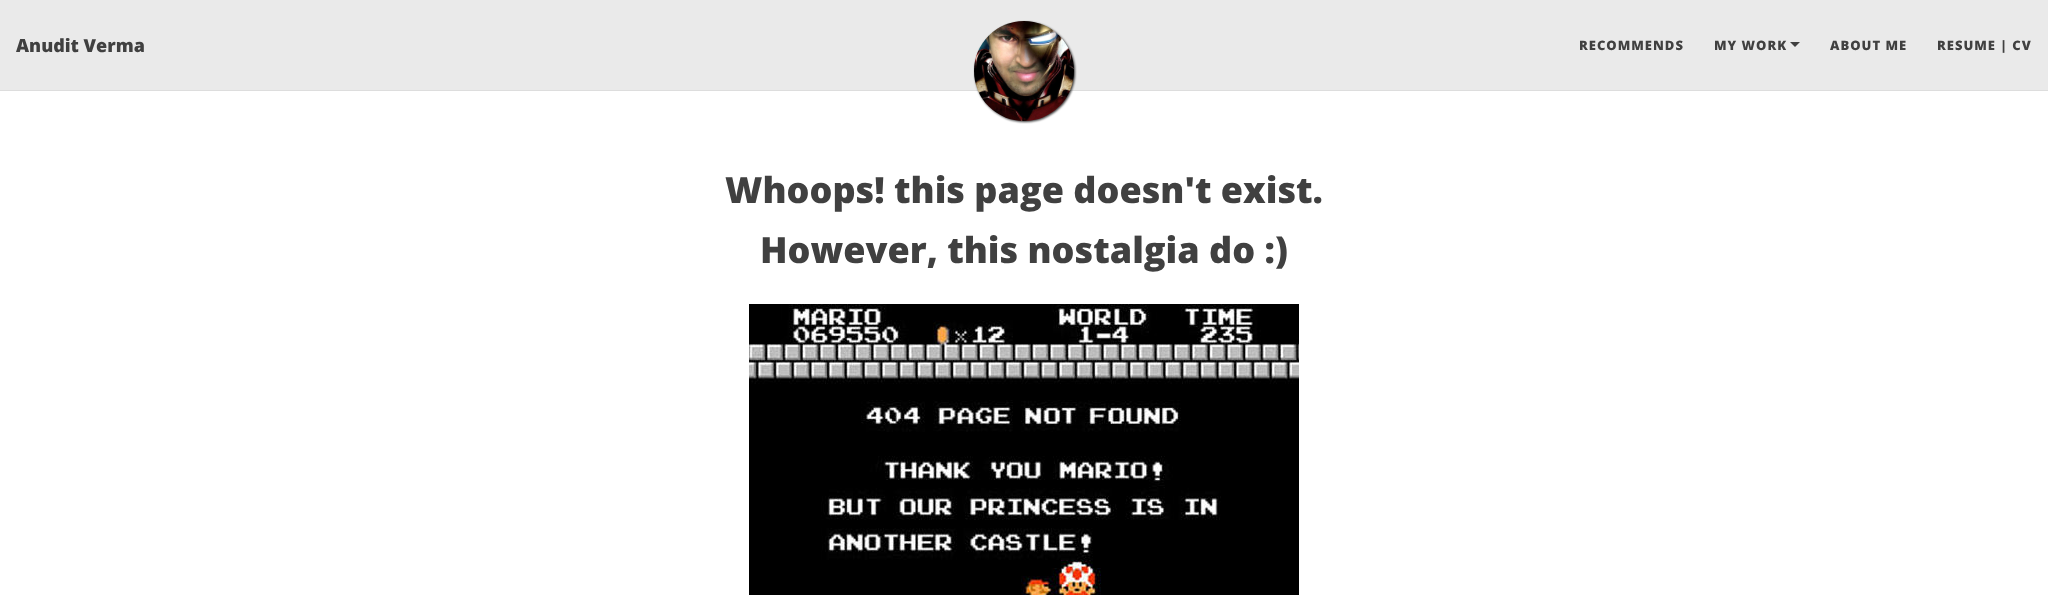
(async () => {
const canvas = document.querySelector("canvas")
canvas.width = 2048
canvas.height = 595
const c = canvas.getContext("2d")
c.miterLimit = 4
c.fontKerning = "normal"
function T(s,x,y){c.fillText(s,x,y)}
function R(x,y,w,h){c.fillRect(x,y,w,h)}
async function I(src,x,y,w,h){const img=new Image();img.src=src;await img.decode();c.drawImage(img,x,y,w,h)}
let path
c.fillStyle="#fff"
R(0,0,2048,595)
c.fillStyle="#eaeaea"
R(0,0,2048,90)
c.fillStyle="#ddd"
R(0,90,2048,1)
c.font="800 18px Open Sans"
c.fillStyle="#404040"
T("Anudit Verma",16,52)
c.fillStyle="#000000cc"
c.filter="blur(1px)"
c.beginPath()
c.roundRect(975,22,100,100,50)
c.fill()
c.filter="none"
await I("1.png",974,21,100,100)
c.letterSpacing="1px"
c.font="800 13px Open Sans"
c.fillStyle="#404040"
T("RECOMMENDS",1579,50)
T("MY WORK",1714,50)
path = new Path2D("M1790 42h10l-5 5z")
c.fill(path)
T("ABOUT ME",1830,50)
T("RESUME | CV",1937,50)
c.letterSpacing="0px"
c.font="800 36px Open Sans"
T("Whoops! this page doesn't exist.",725,203)
T("However, this nostalgia do :)",760,263)
await I("2.png",749,304,550,291)
})()
